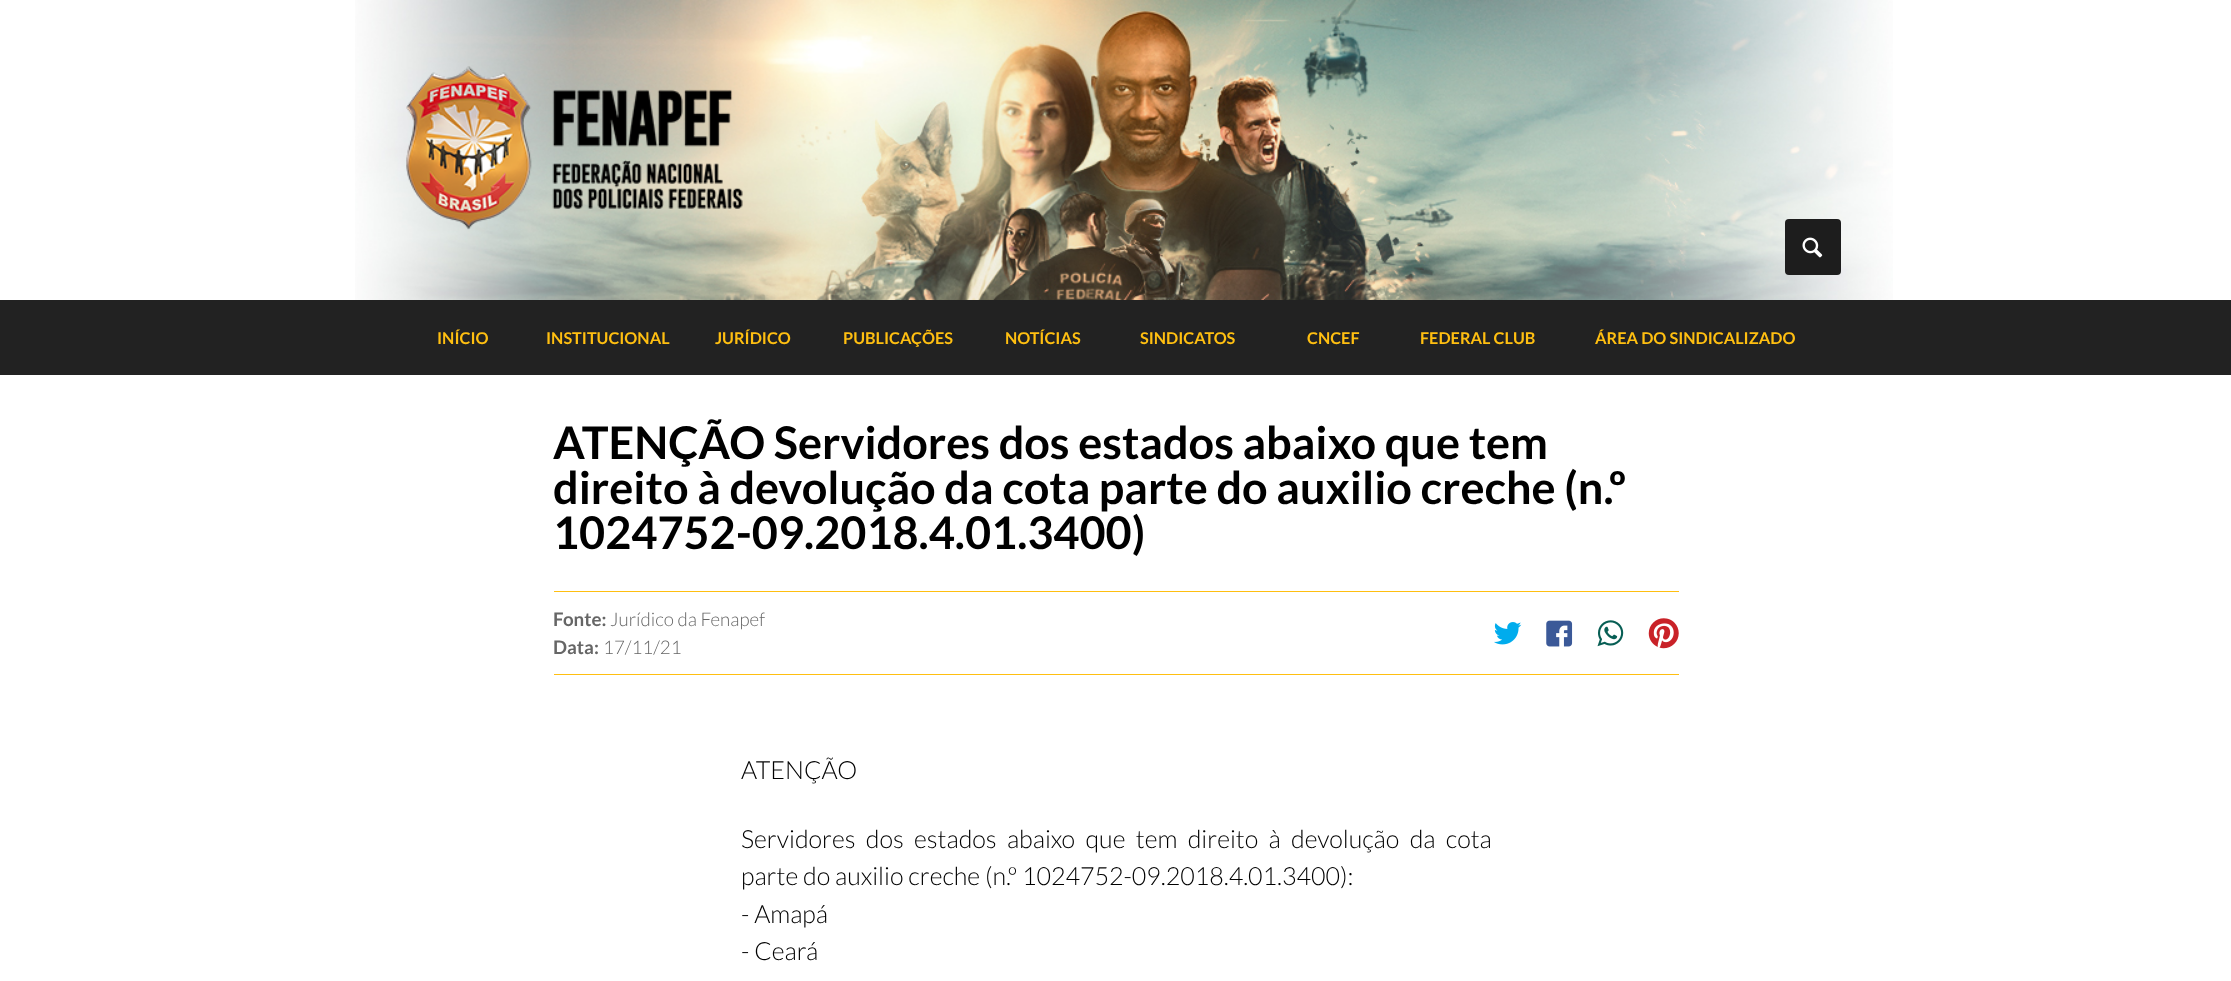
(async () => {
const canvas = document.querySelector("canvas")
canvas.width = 2231
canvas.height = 981
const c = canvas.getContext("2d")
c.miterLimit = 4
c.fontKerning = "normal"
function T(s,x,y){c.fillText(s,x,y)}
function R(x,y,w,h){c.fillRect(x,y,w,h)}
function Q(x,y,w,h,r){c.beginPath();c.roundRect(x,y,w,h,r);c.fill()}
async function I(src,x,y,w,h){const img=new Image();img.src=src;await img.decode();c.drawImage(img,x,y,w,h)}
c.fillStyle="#fff"
R(0,0,2231,981)
await I("1.png",355,0,1538,300)
await I("2.png",406,66,337,164)
c.fillStyle="#1d1d1d"
Q(1785,219,56,56,4)
await I("3.png",1802,237,21,21)
c.fillStyle="#222"
R(0,300,2231,75)
c.font="bold 16.25px Lato"
c.fillStyle="#ffbf11"
T("INÍCIO",437,344)
T("INSTITUCIONAL",546,344)
T("JURÍDICO",715,344)
T("PUBLICAÇÕES",843,344)
T("NOTÍCIAS",1005,344)
T("SINDICATOS",1140,344)
T("CNCEF",1307,344)
T("FEDERAL CLUB",1420,344)
T("ÁREA DO SINDICALIZADO",1595,344)
c.font="bold 45px Lato"
c.fillStyle="#000"
T("ATENÇÃO Servidores dos estados abaixo que tem",553,459)
T("direito à devolução da cota parte do auxilio creche (n.º",553,504)
T("1024752-09.2018.4.01.3400)",553,549)
c.fillStyle="#ffbf11"
R(554,591,1125,1)
R(554,674,1125,1)
c.font="bold 18.75px Lato"
c.fillStyle="#666"
T("Fonte:",553,626)
c.font="300 18.75px Lato"
T("Jurídico da Fenapef",610,626)
c.font="bold 18.75px Lato"
T("Data:",553,654)
c.font="300 18.75px Lato"
T("17/11/21",603,654)
await I("4.png",1494,622,28,23)
await I("5.png",1546,620,27,27)
await I("6.png",1597,620,27,27)
await I("7.png",1648,618,31,31)
c.font="300 25px Lato"
c.fillStyle="#000"
T("ATENÇÃO",741,779)
c.wordSpacing="5.5px"
T("Servidores dos estados abaixo que tem direito à devolução da cota",741,848)
c.wordSpacing="0px"
T("parte do auxilio creche (n.º 1024752-09.2018.4.01.3400):",741,885)
T("- Amapá",741,923)
T("- Ceará",741,960)
})()
